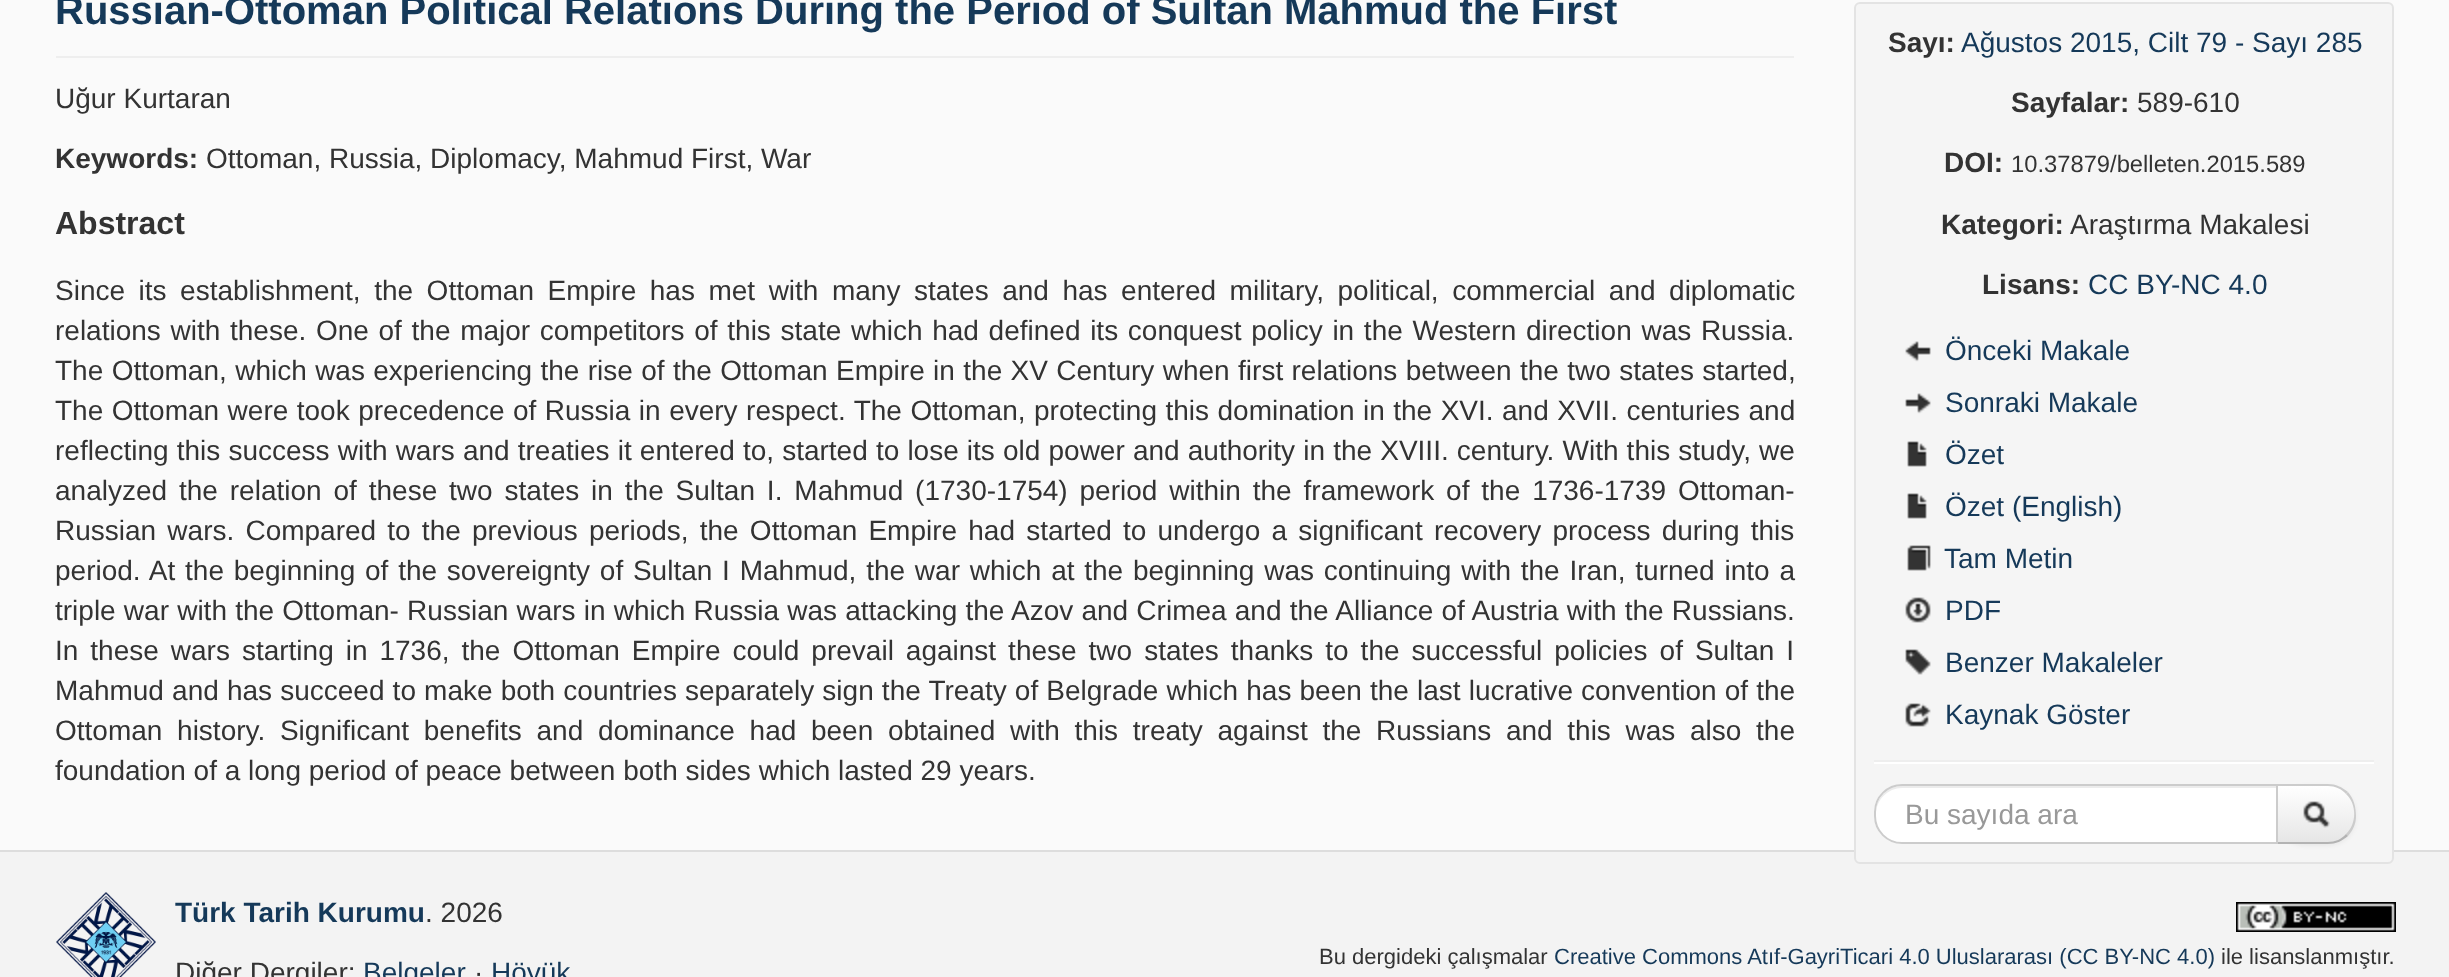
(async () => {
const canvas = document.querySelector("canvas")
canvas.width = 2449
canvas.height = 977
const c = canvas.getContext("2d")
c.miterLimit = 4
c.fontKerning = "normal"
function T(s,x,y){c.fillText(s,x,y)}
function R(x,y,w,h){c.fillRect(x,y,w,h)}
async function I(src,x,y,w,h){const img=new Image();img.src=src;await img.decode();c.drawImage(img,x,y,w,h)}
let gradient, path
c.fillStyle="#fafafa"
R(0,0,2449,977)
c.fillStyle="#eee"
R(56,56,1738,2)
c.font="bold 40px Liberation Sans"
c.fillStyle="#153959"
T("Russian-Ottoman Political Relations During the Period of Sultan Mahmud the First",55,24)
c.font="28px Liberation Sans"
c.fillStyle="#333"
T("Uğur Kurtaran",55,108)
c.font="bold 28px Liberation Sans"
T("Keywords:",55,168)
c.font="28px Liberation Sans"
T("Ottoman, Russia, Diplomacy, Mahmud First, War",206,168)
c.font="bold 32px Liberation Sans"
T("Abstract",55,234)
c.wordSpacing="5.75px"
c.font="28px Liberation Sans"
T("Since its establishment, the Ottoman Empire has met with many states and has entered military, political, commercial and diplomatic",55,300)
c.wordSpacing="1.9px"
T("relations with these. One of the major competitors of this state which had defined its conquest policy in the Western direction was Russia.",55,340)
c.wordSpacing="0.6px"
T("The Ottoman, which was experiencing the rise of the Ottoman Empire in the XV Century when first relations between the two states started,",55,380)
c.wordSpacing="0.7px"
T("The Ottoman were took precedence of Russia in every respect. The Ottoman, protecting this domination in the XVI. and XVII. centuries and",55,420)
c.wordSpacing="0.35px"
T("reflecting this success with wars and treaties it entered to, started to lose its old power and authority in the XVIII. century. With this study, we",55,460)
c.wordSpacing="4.1px"
T("analyzed the relation of these two states in the Sultan I. Mahmud (1730-1754) period within the framework of the 1736-1739 Ottoman-",55,500)
c.wordSpacing="3.4px"
T("Russian wars. Compared to the previous periods, the Ottoman Empire had started to undergo a significant recovery process during this",55,540)
c.wordSpacing="2px"
T("period. At the beginning of the sovereignty of Sultan I Mahmud, the war which at the beginning was continuing with the Iran, turned into a",55,580)
c.wordSpacing="0.4px"
T("triple war with the Ottoman- Russian wars in which Russia was attacking the Azov and Crimea and the Alliance of Austria with the Russians.",55,620)
c.wordSpacing="4.2px"
T("In these wars starting in 1736, the Ottoman Empire could prevail against these two states thanks to the successful policies of Sultan I",55,660)
c.wordSpacing="0.35px"
T("Mahmud and has succeed to make both countries separately sign the Treaty of Belgrade which has been the last lucrative convention of the",55,700)
c.wordSpacing="6.9px"
T("Ottoman history. Significant benefits and dominance had been obtained with this treaty against the Russians and this was also the",55,740)
c.wordSpacing="0px"
T("foundation of a long period of peace between both sides which lasted 29 years.",55,780)
c.fillStyle="#f3f3f3"
R(0,852,2449,125)
c.fillStyle="#ddd"
R(0,850,2449,2)
c.fillStyle="#f5f5f5"
c.beginPath()
c.roundRect(1855,3,538,860,5)
c.fill()
c.strokeStyle="#e3e3e3"
c.lineWidth=2
c.stroke()
c.font="bold 28px Liberation Sans"
c.fillStyle="#333"
T("Sayı:",1888,52)
c.font="28px Liberation Sans"
c.fillStyle="#153959"
T("Ağustos 2015, Cilt 79 - Sayı 285",1961,52)
c.font="bold 28px Liberation Sans"
c.fillStyle="#333"
T("Sayfalar:",2011,112)
c.font="28px Liberation Sans"
T("589-610",2137,112)
c.font="bold 28px Liberation Sans"
T("DOI:",1944,172)
c.font="23.75px Liberation Sans"
T("10.37879/belleten.2015.589",2011,172)
c.font="bold 28px Liberation Sans"
T("Kategori:",1941,234)
c.font="28px Liberation Sans"
T("Araştırma Makalesi",2070,234)
c.font="bold 28px Liberation Sans"
T("Lisans:",1982,294)
c.font="28px Liberation Sans"
c.fillStyle="#153959"
T("CC BY-NC 4.0",2088,294)
await I("1.png",1905,341,26,21)
T("Önceki Makale",1945,360)
await I("2.png",1905,393,26,21)
T("Sonraki Makale",1945,412)
await I("3.png",1907,441,20,26)
T("Özet",1945,464)
await I("3.png",1907,493,20,26)
T("Özet (English)",1945,516)
await I("4.png",1907,545,24,26)
T("Tam Metin",1944,568)
await I("5.png",1905,597,26,26)
T("PDF",1945,620)
await I("6.png",1905,649,26,26)
T("Benzer Makaleler",1945,672)
await I("7.png",1905,703,26,24)
T("Kaynak Göster",1945,724)
c.fillStyle="#eee"
R(1874,760,500,2)
c.fillStyle="#fff"
R(1874,762,500,2)
c.fillStyle="#0000000d"
c.filter="blur(2px)"
c.beginPath()
c.roundRect(2276,786,80,60,28)
c.fill()
c.filter="none"
c.save()
c.beginPath()
c.roundRect(2276,784,80,60,[0,28,28,0])
c.clip()
gradient = c.createLinearGradient(2316,786,2316,842)
gradient.addColorStop(0,"#fff")
gradient.addColorStop(1,"#e6e6e6")
c.fillStyle = gradient
R(2278,786,78,56)
c.restore()
c.fillStyle="#ccc"
path = new Path2D("M2276 784l2 2h50c7 0 14 3 18 8l2-2c-6-5-12-8-20-8z")
c.fill(path)
path = new Path2D("M2356 816c0-9-2-17-8-24l-2 2c11 10 11 30 0 40l2 2c5-6 8-12 8-20z")
c.fill(path)
c.fillStyle="#b3b3b3"
path = new Path2D("M2328 844c8 0 14-3 20-8l-2-2c-4 5-11 8-18 8h-50l-2 2z")
c.fill(path)
c.fillStyle="#fff"
c.beginPath()
c.roundRect(1874,784,404,60,[28,0,0,28])
c.fill()
c.fillStyle="#ececec"
path = new Path2D("M1902 788h374v-2h-374c-14 0-26 12-26 26v2c0-14 12-26 26-26z")
c.fill(path)
c.beginPath()
c.roundRect(1875,785,402,58,[27,0,0,27])
c.strokeStyle="#ccc"
c.stroke()
c.fillStyle="#999"
T("Bu sayıda ara",1905,824)
await I("8.png",2303,801,27,27)
await I("9.png",56,892,100,85)
c.font="bold 28px Liberation Sans"
c.fillStyle="#153959"
T("Türk Tarih Kurumu",175,922)
c.font="28px Liberation Sans"
c.fillStyle="#333"
T(". 2026",425,922)
T("Diğer Dergiler:",175,982)
c.fillStyle="#153959"
T("Belgeler",363,982)
c.fillStyle="#333"
T("·",474,982)
c.fillStyle="#153959"
T("Höyük",491,982)
await I("10.png",2236,902,160,30)
c.font="22px Liberation Sans"
c.fillStyle="#333"
T("Bu dergideki çalışmalar",1319,964)
c.fillStyle="#153959"
T("Creative Commons Atıf-GayriTicari 4.0 Uluslararası (CC BY-NC 4.0)",1554,964)
c.fillStyle="#333"
T("ile lisanslanmıştır.",2221,964)
})()
